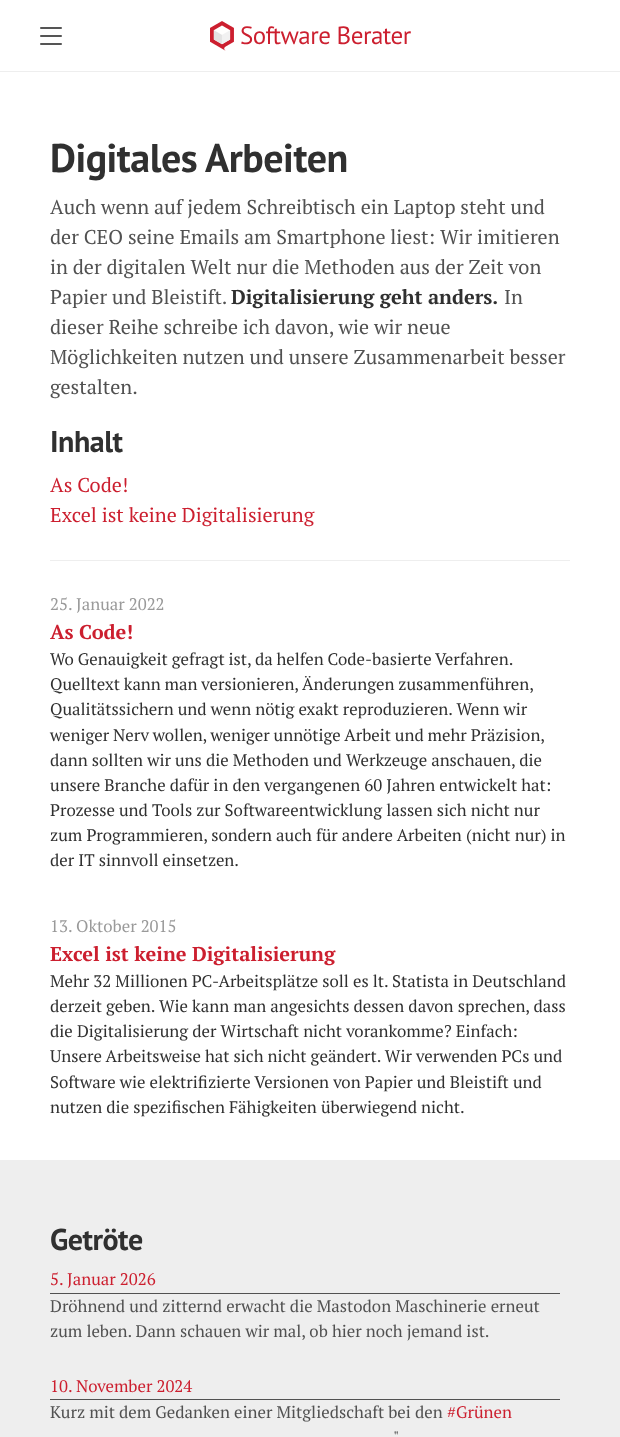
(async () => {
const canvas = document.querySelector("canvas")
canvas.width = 620
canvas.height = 1437
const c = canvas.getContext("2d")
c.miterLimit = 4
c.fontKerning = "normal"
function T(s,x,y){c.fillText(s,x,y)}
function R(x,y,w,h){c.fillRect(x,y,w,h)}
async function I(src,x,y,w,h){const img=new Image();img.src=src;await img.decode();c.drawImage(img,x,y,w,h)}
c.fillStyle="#fff"
R(0,0,620,1437)
c.fillStyle="#eee"
R(0,71,620,1)
await I("1.png",210,21,24,30)
c.letterSpacing="-0.5px"
c.font="25px PT Sans"
c.fillStyle="#cc1f2f"
T("Software Berater",240,44)
c.font="bold 40px PT Sans"
c.fillStyle="#303030"
T("Digitales Arbeiten",50,172)
c.letterSpacing="0px"
c.font="20px PT Serif"
c.fillStyle="#515151"
T("Auch wenn auf jedem Schreibtisch ein Laptop steht und",50,214)
T("der CEO seine Emails am Smartphone liest: Wir imitieren",50,244)
T("in der digitalen Welt nur die Methoden aus der Zeit von",50,274)
T("Papier und Bleistift.",50,304)
c.font="bold 20px PT Serif"
c.fillStyle="#303030"
T("Digitalisierung geht anders.",231,304)
c.font="20px PT Serif"
c.fillStyle="#515151"
T("In",504,304)
T("dieser Reihe schreibe ich davon, wie wir neue",50,334)
T("Möglichkeiten nutzen und unsere Zusammenarbeit besser",50,364)
T("gestalten.",50,394)
c.letterSpacing="-0.5px"
c.font="bold 30px PT Sans"
c.fillStyle="#303030"
T("Inhalt",50,452)
c.letterSpacing="0px"
c.font="20px PT Serif"
c.fillStyle="#cc1f2f"
T("As Code!",50,492)
T("Excel ist keine Digitalisierung",50,522)
c.fillStyle="#eee"
R(50,560,520,1)
c.font="16.8px PT Serif"
c.fillStyle="#9a9a9a"
T("25. Januar 2022",50,610)
c.font="bold 20px PT Serif"
c.fillStyle="#cc1f2f"
T("As Code!",50,639)
c.wordSpacing="-0.25px"
c.font="16.8px PT Serif"
c.fillStyle="#303030"
T("Wo Genauigkeit gefragt ist, da helfen Code-basierte Verfahren.",50,665)
T("Quelltext kann man versionieren, Änderungen zusammenführen,",50,690)
c.wordSpacing="0px"
T("Qualitätssichern und wenn nötig exakt reproduzieren. Wenn wir",50,715)
c.wordSpacing="-0.25px"
T("weniger Nerv wollen, weniger unnötige Arbeit und mehr Präzision,",50,741)
c.wordSpacing="0px"
T("dann sollten wir uns die Methoden und Werkzeuge anschauen, die",50,766)
T("unsere Branche dafür in den vergangenen 60 Jahren entwickelt hat:",50,791)
T("Prozesse und Tools zur Softwareentwicklung lassen sich nicht nur",50,816)
T("zum Programmieren, sondern auch für andere Arbeiten (nicht nur) in",50,841)
T("der IT sinnvoll einsetzen.",50,866)
c.fillStyle="#9a9a9a"
T("13. Oktober 2015",50,932)
c.font="bold 20px PT Serif"
c.fillStyle="#cc1f2f"
T("Excel ist keine Digitalisierung",50,961)
c.font="16.8px PT Serif"
c.fillStyle="#303030"
T("Mehr 32 Millionen PC-Arbeitsplätze soll es lt. Statista in Deutschland",50,987)
T("derzeit geben. Wie kann man angesichts dessen davon sprechen, dass",50,1012)
T("die Digitalisierung der Wirtschaft nicht vorankomme? Einfach:",50,1037)
T("Unsere Arbeitsweise hat sich nicht geändert. Wir verwenden PCs und",50,1062)
T("Software wie elektrifizierte Versionen von Papier und Bleistift und",50,1088)
T("nutzen die spezifischen Fähigkeiten überwiegend nicht.",50,1113)
c.fillStyle="#eee"
R(0,1160,620,277)
c.letterSpacing="-0.5px"
c.font="bold 30px PT Sans"
c.fillStyle="#303030"
T("Getröte",50,1250)
c.fillStyle="#515151"
R(50,1293,510,1)
c.letterSpacing="0px"
c.font="16.8px PT Serif"
c.fillStyle="#cc1f2f"
T("5. Januar 2026",50,1285)
c.fillStyle="#515151"
T("Dröhnend und zitternd erwacht die Mastodon Maschinerie erneut",50,1312)
T("zum leben. Dann schauen wir mal, ob hier noch jemand ist.",50,1337)
R(50,1399,510,1)
c.fillStyle="#cc1f2f"
T("10. November 2024",50,1392)
c.fillStyle="#515151"
T("Kurz mit dem Gedanken einer Mitgliedschaft bei den",50,1418)
c.fillStyle="#cc1f2f"
T("#Grünen",447,1418)
c.fillStyle="#515151"
T("\"",393,1443)
await I("2.png",40,27,22,18)
})()
